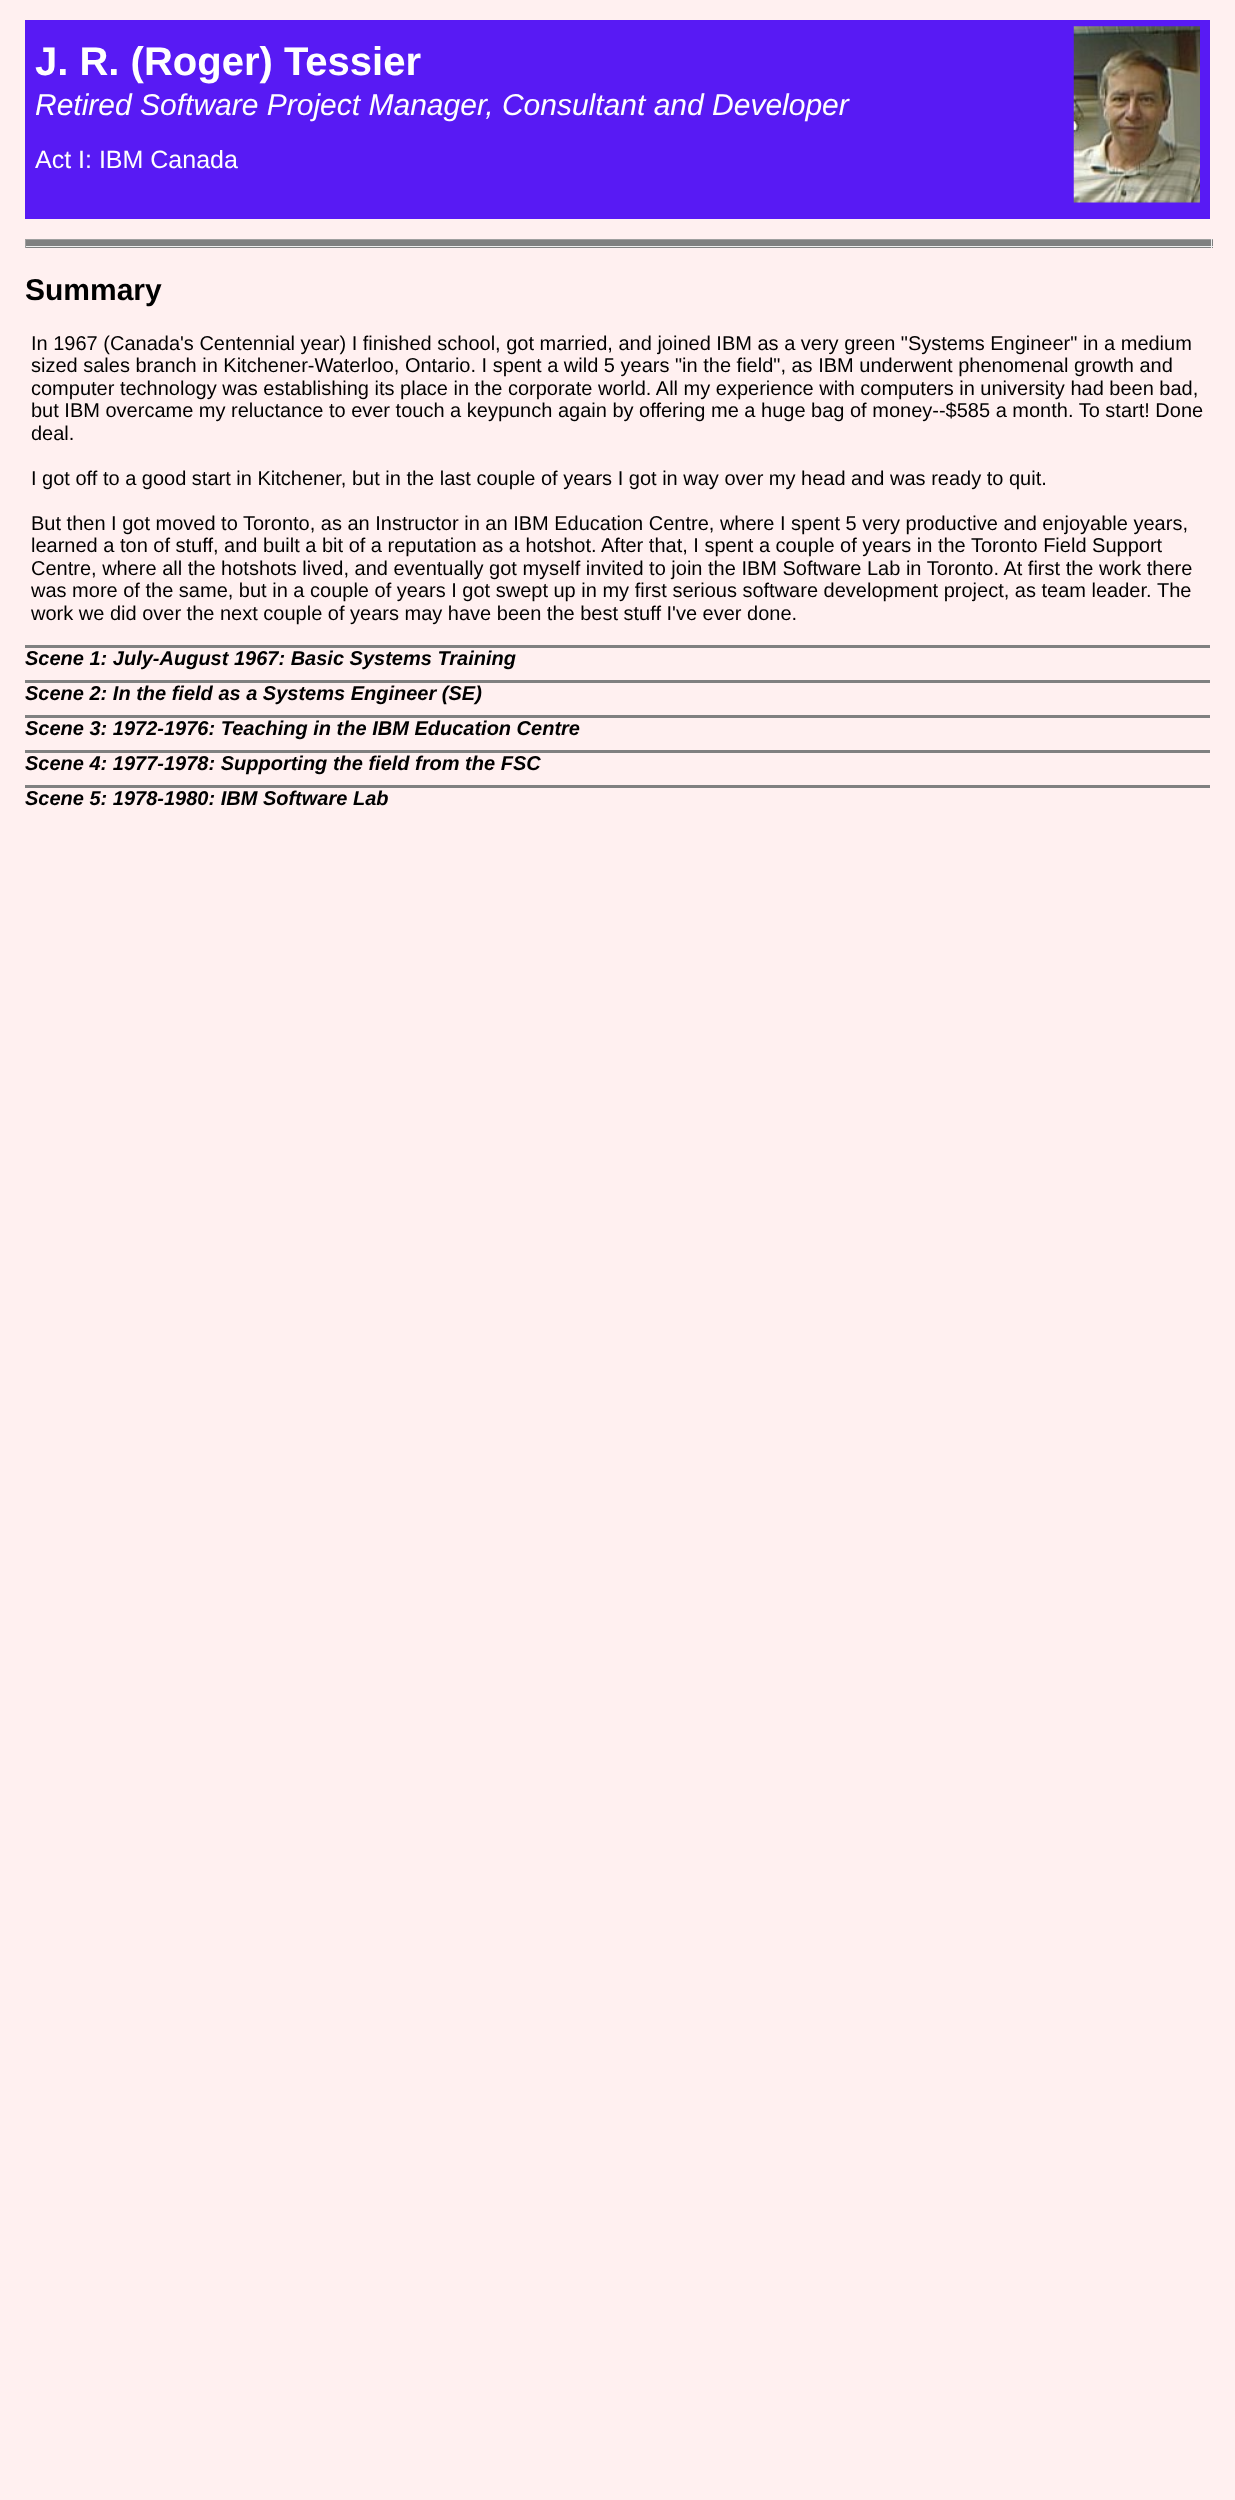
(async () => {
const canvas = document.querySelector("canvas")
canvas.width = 1235
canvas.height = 2500
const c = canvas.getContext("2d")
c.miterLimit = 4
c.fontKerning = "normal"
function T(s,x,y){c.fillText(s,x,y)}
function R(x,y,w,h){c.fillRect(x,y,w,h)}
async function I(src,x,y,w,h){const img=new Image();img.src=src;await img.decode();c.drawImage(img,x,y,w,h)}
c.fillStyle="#fff0f0"
R(0,0,1235,2500)
c.fillStyle="#581af4"
R(25,20,1185,199)
c.font="bold 40px Liberation Sans"
c.fillStyle="#fff"
T("J. R. (Roger) Tessier",35,75)
await I("1.png",1073,26,127,177)
c.font="italic 30px Liberation Sans"
T("Retired Software Project Manager, Consultant and Developer",35,115)
c.font="25px Liberation Sans"
T("Act I: IBM Canada",35,168)
c.fillStyle="#808080"
R(26,240,1187,8)
c.fillStyle="#9f9f9f"
R(25,239,1188,1)
c.fillStyle="#eee"
R(1211,239,1,9)
R(25,246,1188,1)
c.fillStyle="#9f9f9f"
R(25,239,1,9)
c.font="bold 30px Liberation Sans"
c.fillStyle="#000"
T("Summary",25,300)
c.font="20px Liberation Sans"
T("In 1967 (Canada's Centennial year) I finished school, got married, and joined IBM as a very green \"Systems Engineer\" in a medium",31,350)
T("sized sales branch in Kitchener-Waterloo, Ontario. I spent a wild 5 years \"in the field\", as IBM underwent phenomenal growth and",31,372)
T("computer technology was establishing its place in the corporate world. All my experience with computers in university had been bad,",31,395)
T("but IBM overcame my reluctance to ever touch a keypunch again by offering me a huge bag of money--$585 a month. To start! Done",31,417)
T("deal.",31,440)
T("I got off to a good start in Kitchener, but in the last couple of years I got in way over my head and was ready to quit.",31,485)
T("But then I got moved to Toronto, as an Instructor in an IBM Education Centre, where I spent 5 very productive and enjoyable years,",31,530)
T("learned a ton of stuff, and built a bit of a reputation as a hotshot. After that, I spent a couple of years in the Toronto Field Support",31,552)
T("Centre, where all the hotshots lived, and eventually got myself invited to join the IBM Software Lab in Toronto. At first the work there",31,575)
T("was more of the same, but in a couple of years I got swept up in my first serious software development project, as team leader.",31,597)
T("The",1157,597)
T("work we did over the next couple of years may have been the best stuff I've ever done.",31,620)
c.fillStyle="#808080"
R(25,645,1185,3)
c.font="italic bold 20px Liberation Sans"
c.fillStyle="#000"
T("Scene 1: July-August 1967: Basic Systems Training",25,665)
c.fillStyle="#808080"
R(25,680,1185,3)
c.fillStyle="#000"
T("Scene 2: In the field as a Systems Engineer (SE)",25,700)
c.fillStyle="#808080"
R(25,715,1185,3)
c.fillStyle="#000"
T("Scene 3: 1972-1976: Teaching in the IBM Education Centre",25,735)
c.fillStyle="#808080"
R(25,750,1185,3)
c.fillStyle="#000"
T("Scene 4: 1977-1978: Supporting the field from the FSC",25,770)
c.fillStyle="#808080"
R(25,785,1185,3)
c.fillStyle="#000"
T("Scene 5: 1978-1980: IBM Software Lab",25,805)
})()
